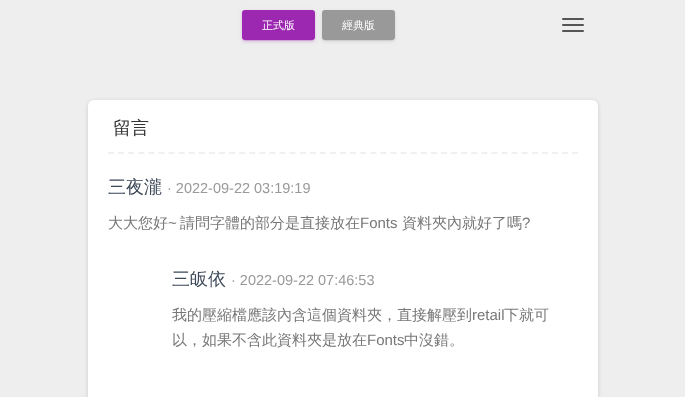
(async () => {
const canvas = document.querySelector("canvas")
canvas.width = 685
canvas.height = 397
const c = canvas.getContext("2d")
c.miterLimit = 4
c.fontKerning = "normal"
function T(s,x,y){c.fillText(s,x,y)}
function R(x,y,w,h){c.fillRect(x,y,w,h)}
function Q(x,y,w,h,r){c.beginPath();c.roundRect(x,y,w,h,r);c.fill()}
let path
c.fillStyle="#eee"
R(0,0,685,397)
c.fillStyle="#9c27b01f"
c.filter="blur(2.5px)"
c.beginPath()
c.roundRect(242,11,73,30,3)
c.fill()
c.filter="none"
c.fillStyle="#9c27b033"
c.filter="blur(0.5px)"
c.beginPath()
c.roundRect(244,15,69,26,1)
c.fill()
c.filter="none"
c.fillStyle="#9c27b024"
c.filter="blur(1px)"
c.beginPath()
c.roundRect(242,12,73,30,3)
c.fill()
c.filter="none"
c.fillStyle="#9c27b0"
Q(242,10,73,30,3)
c.font="500 11px WenQuanYi Zen Hei"
c.fillStyle="#fff"
T("正式版",262,29)
c.fillStyle="#9999991f"
c.filter="blur(2.5px)"
c.beginPath()
c.roundRect(322,11,73,30,3)
c.fill()
c.filter="none"
c.fillStyle="#99999933"
c.filter="blur(0.5px)"
c.beginPath()
c.roundRect(324,15,69,26,1)
c.fill()
c.filter="none"
c.fillStyle="#99999924"
c.filter="blur(1px)"
c.beginPath()
c.roundRect(322,12,73,30,3)
c.fill()
c.filter="none"
c.fillStyle="#999"
Q(322,10,73,30,3)
c.fillStyle="#fff"
T("經典版",342,29)
c.fillStyle="#555"
Q(562,18,22,2,1)
Q(562,24,22,2,1)
Q(562,30,22,2,1)
c.fillStyle="#00000024"
c.filter="blur(2px)"
c.beginPath()
c.roundRect(88,101,510,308,6)
c.fill()
c.filter="none"
c.fillStyle="#fff"
Q(88,100,510,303,6)
path = new Path2D("M108 153h470")
c.strokeStyle="#f0f0f0"
c.lineWidth=2
c.setLineDash([6,4.09])
c.stroke(path)
c.font="500 18px WenQuanYi Zen Hei"
c.fillStyle="#333"
T("留言",113,134)
c.fillStyle="#3c4858"
T("三夜瀧",108,193)
c.font="14.5px Liberation Sans"
c.fillStyle="#999"
T("· 2022-09-22 03:19:19",167,193)
c.font="500 15px WenQuanYi Zen Hei"
c.fillStyle="#777"
T("大大您好",108,228)
c.font="15px Liberation Sans"
T("~",168,228)
c.font="500 15px WenQuanYi Zen Hei"
T("請問字體的部分是直接放在",180,228)
c.font="15px Liberation Sans"
T("Fonts",360,228)
c.font="500 15px WenQuanYi Zen Hei"
T("資料夾內就好了嗎",402,228)
c.font="15px Liberation Sans"
T("?",522,228)
c.font="500 18px WenQuanYi Zen Hei"
c.fillStyle="#3c4858"
T("三皈依",172,285)
c.font="14.5px Liberation Sans"
c.fillStyle="#999"
T("· 2022-09-22 07:46:53",231,285)
c.font="500 15px WenQuanYi Zen Hei"
c.fillStyle="#777"
T("我的壓縮檔應該內含這個資料夾，直接解壓到",172,320)
c.font="15px Liberation Sans"
T("retail",472,320)
c.font="500 15px WenQuanYi Zen Hei"
T("下就可",504,320)
T("以，如果不含此資料夾是放在",172,345)
c.font="15px Liberation Sans"
T("Fonts",367,345)
c.font="500 15px WenQuanYi Zen Hei"
T("中沒錯。",404,345)
})()
